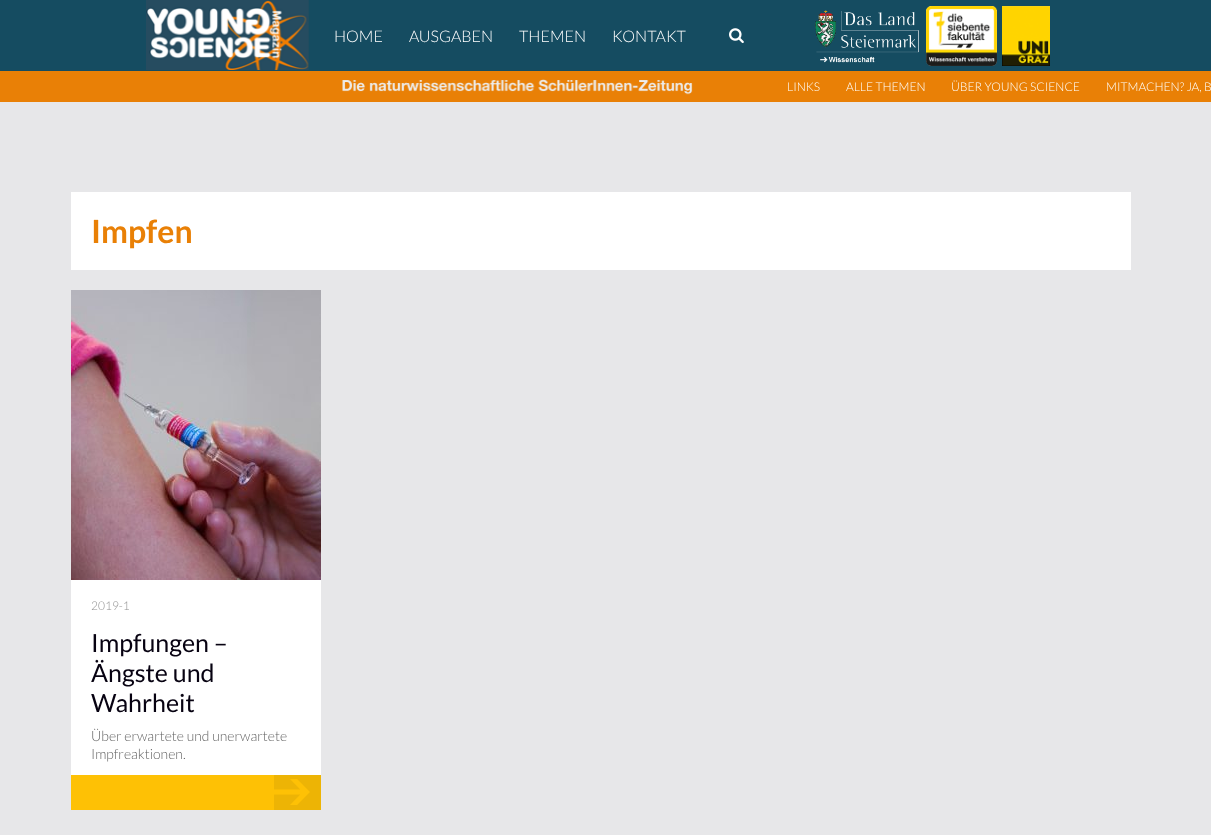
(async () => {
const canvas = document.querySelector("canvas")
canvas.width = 1211
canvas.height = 835
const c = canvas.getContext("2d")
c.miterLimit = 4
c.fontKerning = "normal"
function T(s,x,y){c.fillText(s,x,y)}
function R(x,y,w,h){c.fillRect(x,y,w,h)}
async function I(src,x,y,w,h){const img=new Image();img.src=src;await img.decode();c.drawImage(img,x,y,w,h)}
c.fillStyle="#e7e7e9"
R(0,0,1211,835)
c.fillStyle="#154c61"
R(0,0,1211,71)
await I("1.png",815,6,235,60)
await I("2.png",146,0,163,70)
c.font="300 16px Lato"
c.fillStyle="#fff"
T("HOME",334,42)
T("AUSGABEN",409,42)
T("THEMEN",519,42)
T("KONTAKT",612,42)
await I("3.png",729,28,15,16)
c.fillStyle="#e98006"
R(0,71,1211,31)
await I("4.png",342,79,351,16)
c.font="300 12px Lato"
c.fillStyle="#fff"
T("LINKS",787,91)
T("ALLE THEMEN",846,91)
T("ÜBER YOUNG SCIENCE",951,91)
T("MITMACHEN? JA, B",1106,91)
R(71,192,1060,78)
c.font="bold 32px Lato"
c.fillStyle="#e98006"
T("Impfen",91,243)
c.fillStyle="#fff"
R(71,580,250,195)
await I("5.png",71,290,250,290)
c.font="300 12px Lato"
c.fillStyle="#919191"
T("2019-1",91,610)
c.font="25px Lato"
c.fillStyle="#070211"
T("Impfungen –",91,652)
T("Ängste und",91,682)
T("Wahrheit",91,712)
c.font="300 14px Lato"
c.fillStyle="#666"
T("Über erwartete und unerwartete",91,741)
T("Impfreaktionen.",91,759)
c.fillStyle="#fec105"
R(71,775,250,35)
await I("6.png",274,775,47,35)
})()
